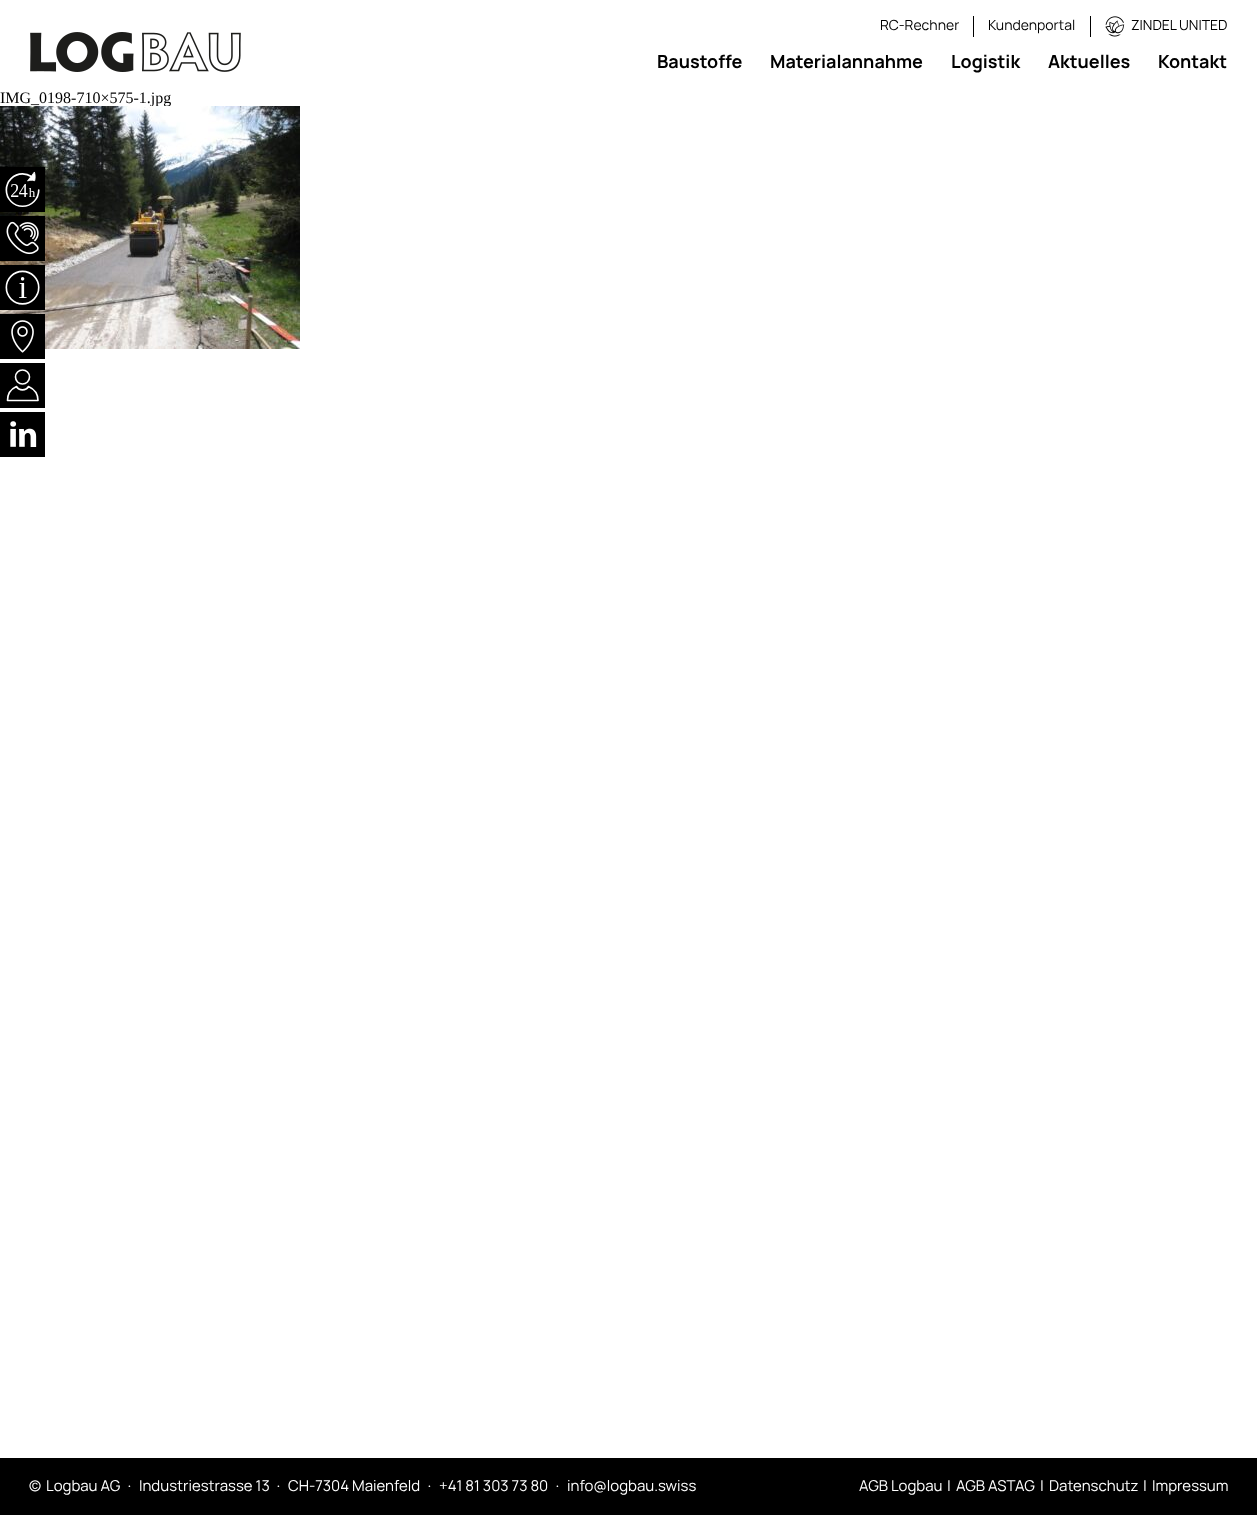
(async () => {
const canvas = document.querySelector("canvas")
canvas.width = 1257
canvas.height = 1515
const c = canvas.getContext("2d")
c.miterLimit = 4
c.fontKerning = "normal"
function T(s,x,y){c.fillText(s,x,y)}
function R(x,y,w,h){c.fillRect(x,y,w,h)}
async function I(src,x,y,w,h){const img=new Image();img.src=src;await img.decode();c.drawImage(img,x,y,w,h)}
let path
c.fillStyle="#fff"
R(0,0,1257,1515)
c.font="14px Manrope"
c.fillStyle="#000"
T("RC-Rechner",880,30)
R(973,16,1,21)
T("Kundenportal",988,30)
R(1090,16,1,21)
await I("1.png",1105,16,20,21)
T("ZINDEL UNITED",1131,30)
await I("2.png",30,32,211,40)
c.font="bold 18px Manrope"
T("Baustoffe",657,68)
T("Materialannahme",770,68)
T("Logistik",951,68)
T("Aktuelles",1048,68)
T("Kontakt",1158,68)
c.font="16px Liberation Serif"
T("IMG_0198-710×575-1.jpg",0,103)
await I("3.png",0,106,300,243)
R(0,1458,1257,57)
c.font="15px Manrope"
c.fillStyle="#fff"
T("©",29,1491)
T("Logbau AG",46,1491)
T("·",125,1491)
T("Industriestrasse 13",139,1491)
T("·",274,1491)
T("CH-7304 Maienfeld",288,1491)
T("·",425,1491)
T("+41 81 303 73 80",439,1491)
T("·",553,1491)
T("info@logbau.swiss",567,1491)
T("AGB Logbau",859,1491)
T("|",947,1491)
T("AGB ASTAG",956,1491)
T("|",1040,1491)
T("Datenschutz",1049,1491)
T("|",1143,1491)
T("Impressum",1152,1491)
c.fillStyle="#000"
R(0,167,45,45)
await I("4.png",5,171,40,36)
R(0,216,45,45)
await I("5.png",6,221,33,34)
R(0,265,45,45)
await I("6.png",5,270,39,35)
R(0,314,45,45)
await I("7.png",11,320,33,33)
R(0,363,45,45)
c.beginPath()
c.arc(22.5,377,7,0,7)
c.strokeStyle="#fff"
c.lineWidth=1.6
c.stroke()
path = new Path2D("M28.5 386.5c-2.5 4.5-9.5 4.5-12 0c-5.5 2.5-9 7.5-9 14h30.5c0-6.5-4-11.5-9.5-14z")
c.lineCap="round"
c.lineJoin="round"
c.stroke(path)
R(0,412,45,45)
await I("8.png",10,421,34,26)
})()
